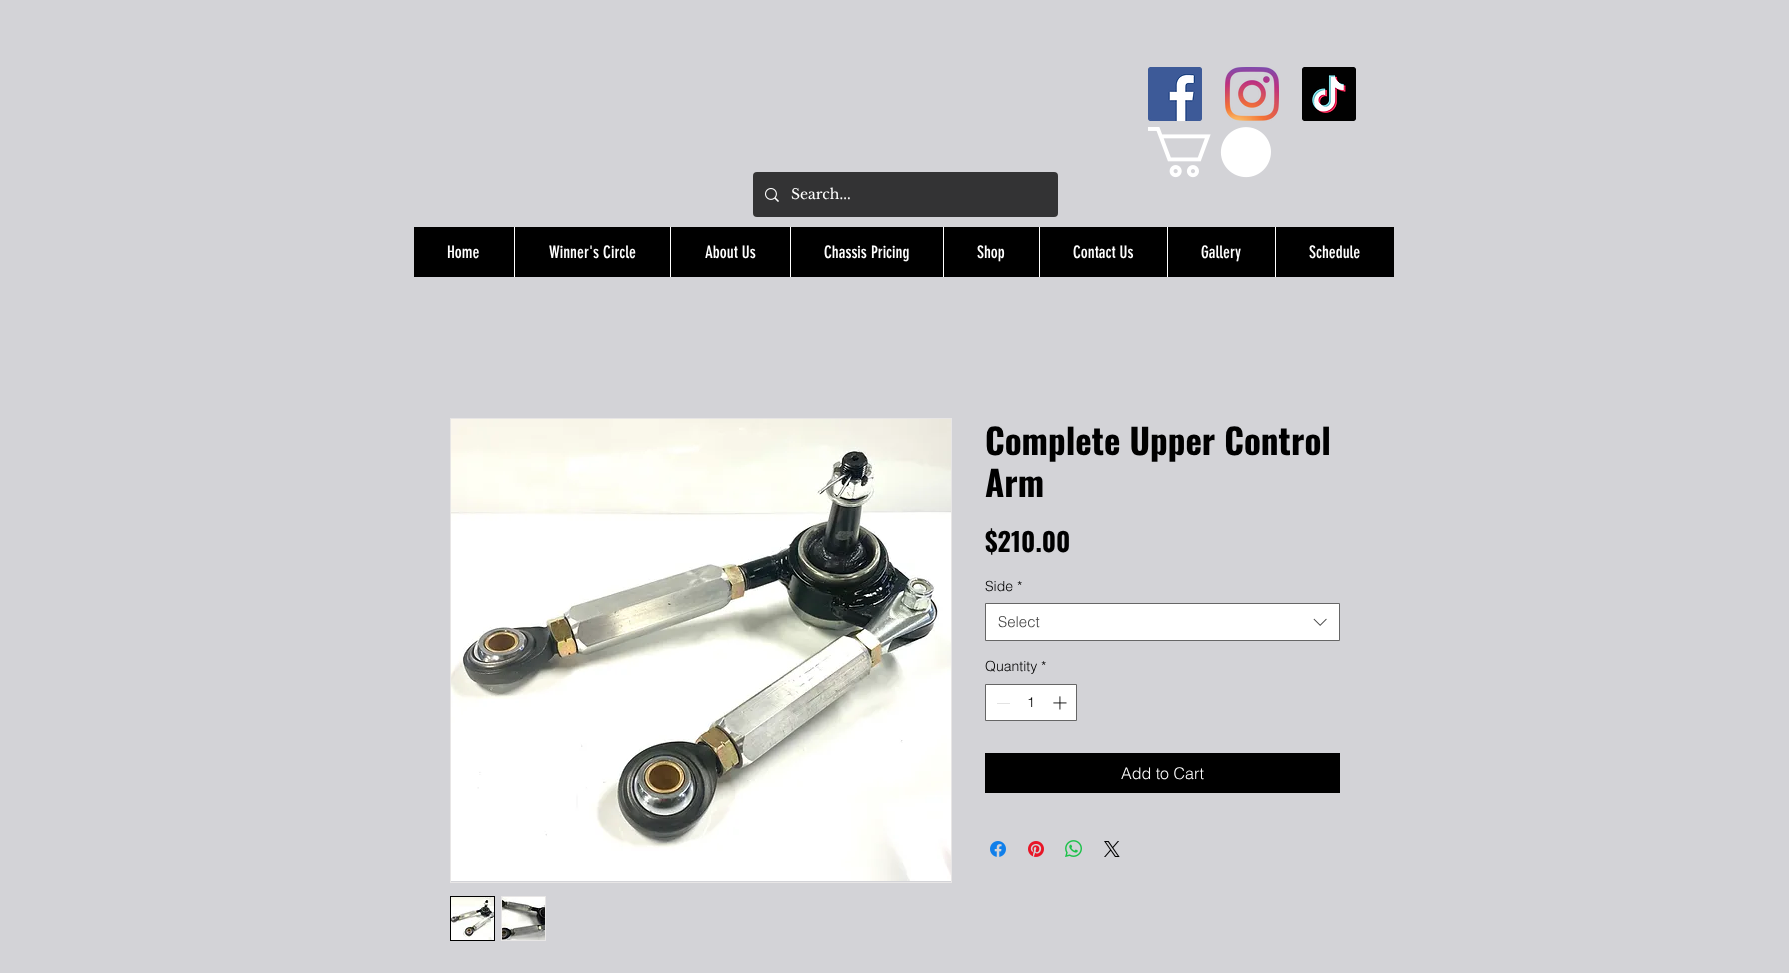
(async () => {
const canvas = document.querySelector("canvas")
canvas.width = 1789
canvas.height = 973
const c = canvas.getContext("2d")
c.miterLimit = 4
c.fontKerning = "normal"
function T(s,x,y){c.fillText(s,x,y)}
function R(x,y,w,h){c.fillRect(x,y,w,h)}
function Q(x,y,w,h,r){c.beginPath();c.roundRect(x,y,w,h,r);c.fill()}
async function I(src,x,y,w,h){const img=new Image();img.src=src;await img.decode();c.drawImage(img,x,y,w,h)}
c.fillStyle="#d3d3d7"
R(0,0,1789,973)
await I("1.png",1148,67,54,54)
await I("2.png",1225,67,54,54)
await I("3.png",1302,67,54,54)
await I("4.png",1148,127,123,51)
c.fillStyle="#333334"
Q(753,172,305,45,4)
await I("5.png",765,188,14,14)
c.font="14px Libre Baskerville"
c.fillStyle="#fff"
T("Search...",791,199)
c.fillStyle="#000"
R(414,227,980,50)
c.font="17px 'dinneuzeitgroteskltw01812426'"
c.fillStyle="#fff"
T("Home",447,258)
R(514,227,1,50)
T("Winner's Circle",549,258)
R(670,227,1,50)
T("About Us",705,258)
R(790,227,1,50)
T("Chassis Pricing",824,258)
R(943,227,1,50)
T("Shop",977,258)
R(1039,227,1,50)
T("Contact Us",1073,258)
R(1167,227,1,50)
T("Gallery",1201,258)
R(1275,227,1,50)
T("Schedule",1309,258)
c.strokeStyle="#e8e6e6"
c.strokeRect(450.5,418.5,501,464)
await I("6.png",451,419,500,462)
c.strokeStyle="#000"
c.strokeRect(450.5,896.5,44,44)
await I("7.png",451,897,43,43)
c.fillStyle="#e8e6e6"
R(501,896,45,45)
await I("8.png",502,897,43,43)
c.font="bold 35px Oswald"
c.fillStyle="#000"
T("Complete Upper Control",985,455)
T("Arm",985,497)
c.font="bold 26px Oswald"
T("$210.00",985,552)
c.font="300 14px helvetica"
T("Side *",985,591)
c.fillStyle="#fff"
c.beginPath()
c.rect(985.5,603.5,354,37)
c.fill()
c.strokeStyle="#666"
c.stroke()
c.font="300 15px helvetica"
c.fillStyle="#444"
T("Select",998,627)
await I("9.png",1313,618,14,8)
c.font="300 14px helvetica"
c.fillStyle="#000"
T("Quantity *",985,671)
c.fillStyle="#fff"
c.beginPath()
c.rect(985.5,684.5,91,36)
c.fill()
c.stroke()
c.fillStyle="#e3e3e3"
R(997,703,13,1)
c.fillStyle="#000"
T("1",1027,707)
await I("10.png",1053,696,14,14)
R(985,753,355,40)
c.font="300 16px helvetica"
c.fillStyle="#fff"
T("Add to Cart",1121,779)
await I("11.png",990,841,16,16)
await I("12.png",1028,841,16,16)
await I("13.png",1065,840,17,17)
await I("14.png",1104,841,16,16)
})()
